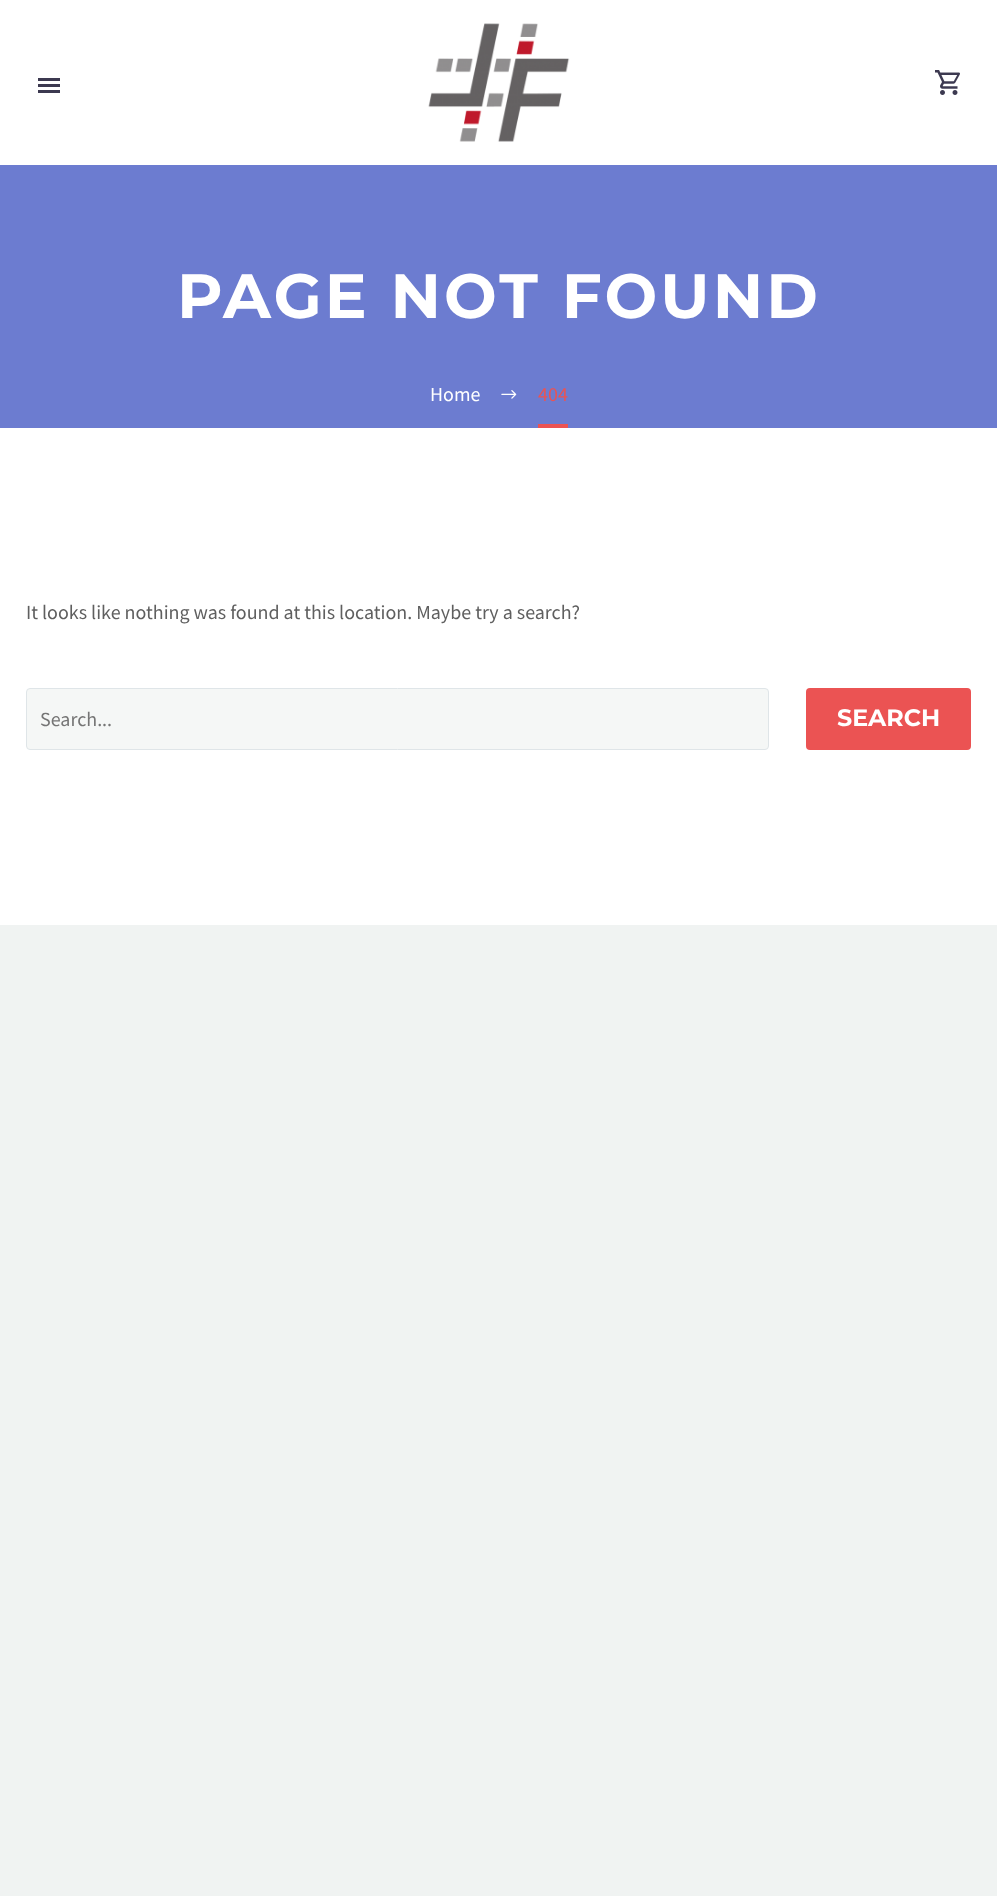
(async () => {
const canvas = document.querySelector("canvas")
canvas.width = 997
canvas.height = 1896
const c = canvas.getContext("2d")
c.miterLimit = 4
c.fontKerning = "normal"
function T(s,x,y){c.fillText(s,x,y)}
function R(x,y,w,h){c.fillRect(x,y,w,h)}
function Q(x,y,w,h,r){c.beginPath();c.roundRect(x,y,w,h,r);c.fill()}
async function I(src,x,y,w,h){const img=new Image();img.src=src;await img.decode();c.drawImage(img,x,y,w,h)}
c.fillStyle="#f0f3f2"
R(0,0,997,1896)
c.fillStyle="#fff"
R(0,0,997,165)
c.fillStyle="#3c3950"
R(38,78,22,3)
R(38,84,22,3)
R(38,90,22,3)
await I("1.png",428,23,142,119)
await I("2.png",935,70,25,25)
c.fillStyle="#6c7cd0"
R(0,165,997,263)
c.letterSpacing="3.1px"
c.font="bold 62.5px Montserrat"
c.fillStyle="#fff"
T("PAGE NOT FOUND",177,318)
c.letterSpacing="0px"
c.font="20px Source Sans Pro"
T("Home",430,401)
await I("3.png",501,390,16,9)
c.fillStyle="#eb5353"
R(538,424,30,4)
T("404",538,401)
c.fillStyle="#fff"
R(0,428,997,497)
c.fillStyle="#5f5f5f"
T("It looks like nothing was found at this location. Maybe try a search?",26,619)
c.fillStyle="#f5f7f6"
c.beginPath()
c.roundRect(26.5,688.5,742,61,3.5)
c.fill()
c.strokeStyle="#dfe5e8"
c.stroke()
c.fillStyle="#757575"
T("Search...",40,726)
c.fillStyle="#eb5353"
Q(806,688,165,62,4)
c.font="bold 23.75px Montserrat"
c.fillStyle="#fff"
T("SEARCH",837,726)
})()
